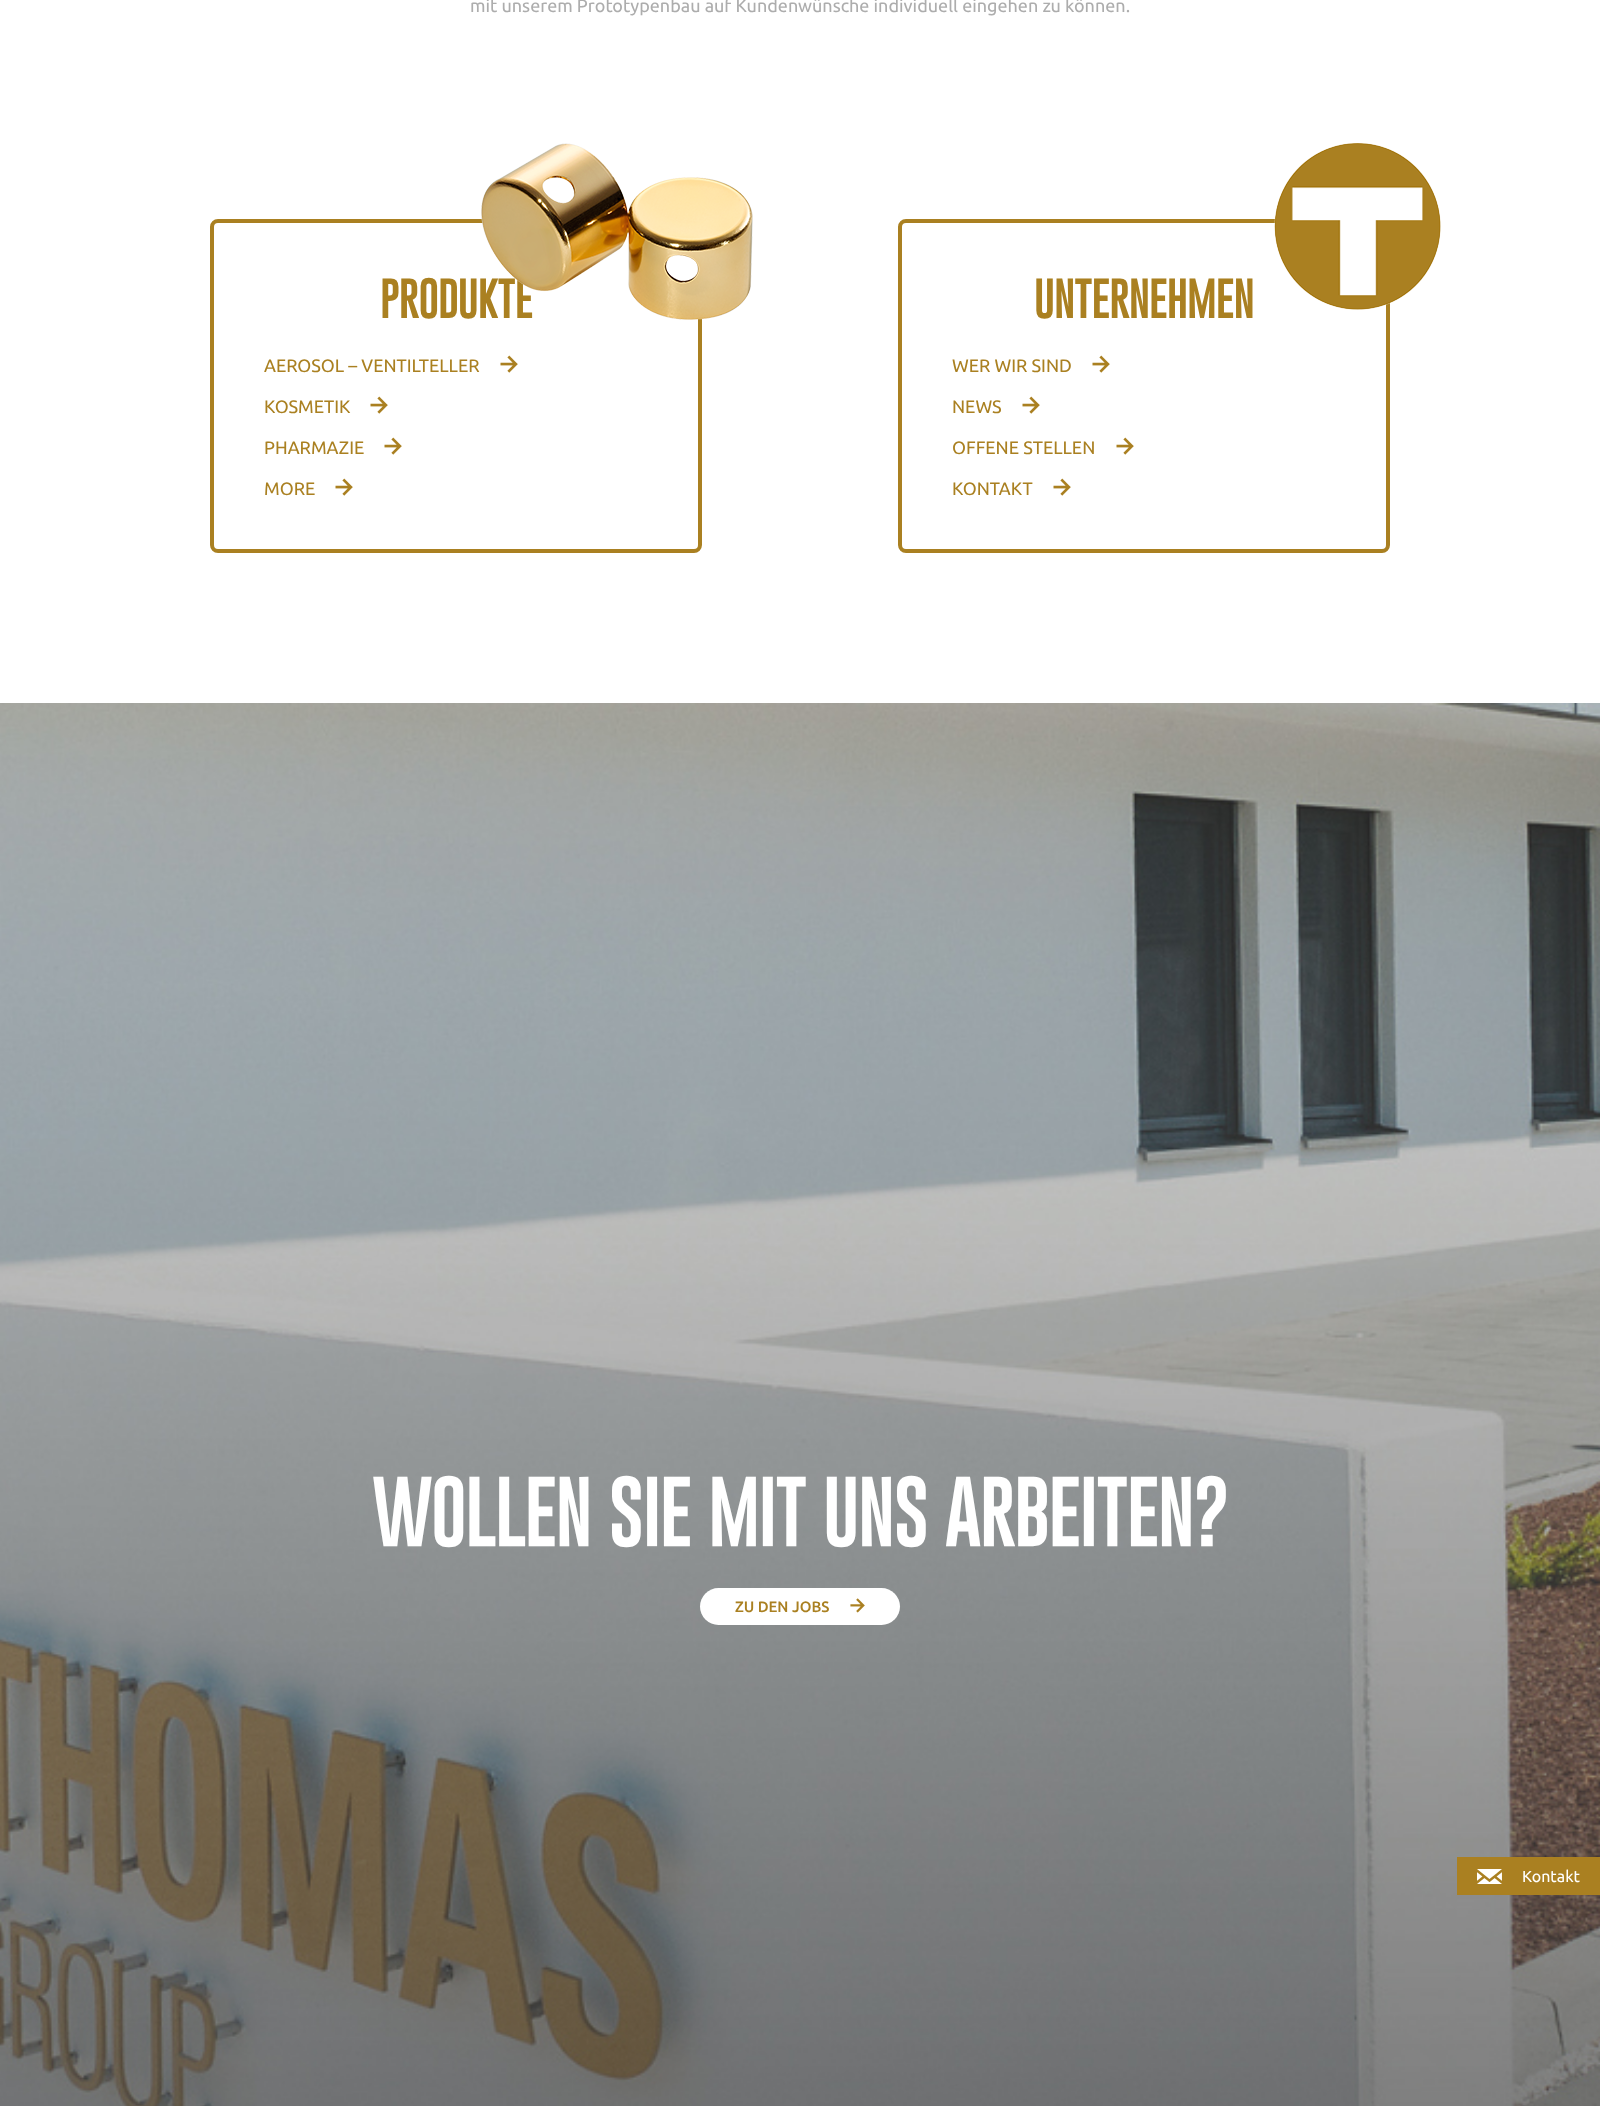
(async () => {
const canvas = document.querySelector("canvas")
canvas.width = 1600
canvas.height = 2106
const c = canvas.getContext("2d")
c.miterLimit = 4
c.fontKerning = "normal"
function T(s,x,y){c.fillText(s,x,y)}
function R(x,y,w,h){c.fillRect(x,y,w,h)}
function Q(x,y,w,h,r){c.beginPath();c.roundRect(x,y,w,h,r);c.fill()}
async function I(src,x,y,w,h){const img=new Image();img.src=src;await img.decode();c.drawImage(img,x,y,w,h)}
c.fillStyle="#fff"
R(0,0,1600,2106)
c.font="18px Ubuntu"
c.fillStyle="#adadad"
T("mit unserem Prototypenbau auf Kundenwünsche individuell eingehen zu können.",470,12)
c.beginPath()
c.roundRect(212,221,488,330,6)
c.strokeStyle="#aa8021"
c.lineWidth=4
c.stroke()
c.font="bold 40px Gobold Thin"
c.fillStyle="#aa8021"
T("PRODUKTE",380,318)
await I("1.png",481,143,272,177)
c.font="18px Ubuntu"
T("AEROSOL – VENTILTELLER",264,372)
await I("2.png",500,355,18,18)
T("KOSMETIK",264,413)
await I("2.png",370,396,18,18)
T("PHARMAZIE",264,454)
await I("2.png",384,437,18,18)
T("MORE",264,495)
await I("2.png",335,478,18,18)
c.beginPath()
c.roundRect(900,221,488,330,6)
c.stroke()
await I("3.png",1274,143,167,167)
c.font="bold 40px Gobold Thin"
T("UNTERNEHMEN",1034,318)
c.font="18px Ubuntu"
T("WER WIR SIND",952,372)
await I("2.png",1092,355,18,18)
T("NEWS",952,413)
await I("2.png",1022,396,18,18)
T("OFFENE STELLEN",952,454)
await I("2.png",1116,437,18,18)
T("KONTAKT",952,495)
await I("2.png",1053,478,18,18)
await I("4.png",0,703,1600,1403)
c.font="bold 70px Gobold Thin"
c.fillStyle="#fff"
T("WOLLEN SIE MIT UNS ARBEITEN?",372,1546)
Q(700,1588,200,37,18.5)
c.font="500 15px Ubuntu"
c.fillStyle="#aa8021"
T("ZU DEN JOBS",735,1612)
await I("5.png",850,1598,15,15)
R(1457,1857,143,38)
await I("6.png",1477,1869,25,15)
c.font="16px Ubuntu"
c.fillStyle="#fff"
T("Kontakt",1522,1882)
})()
